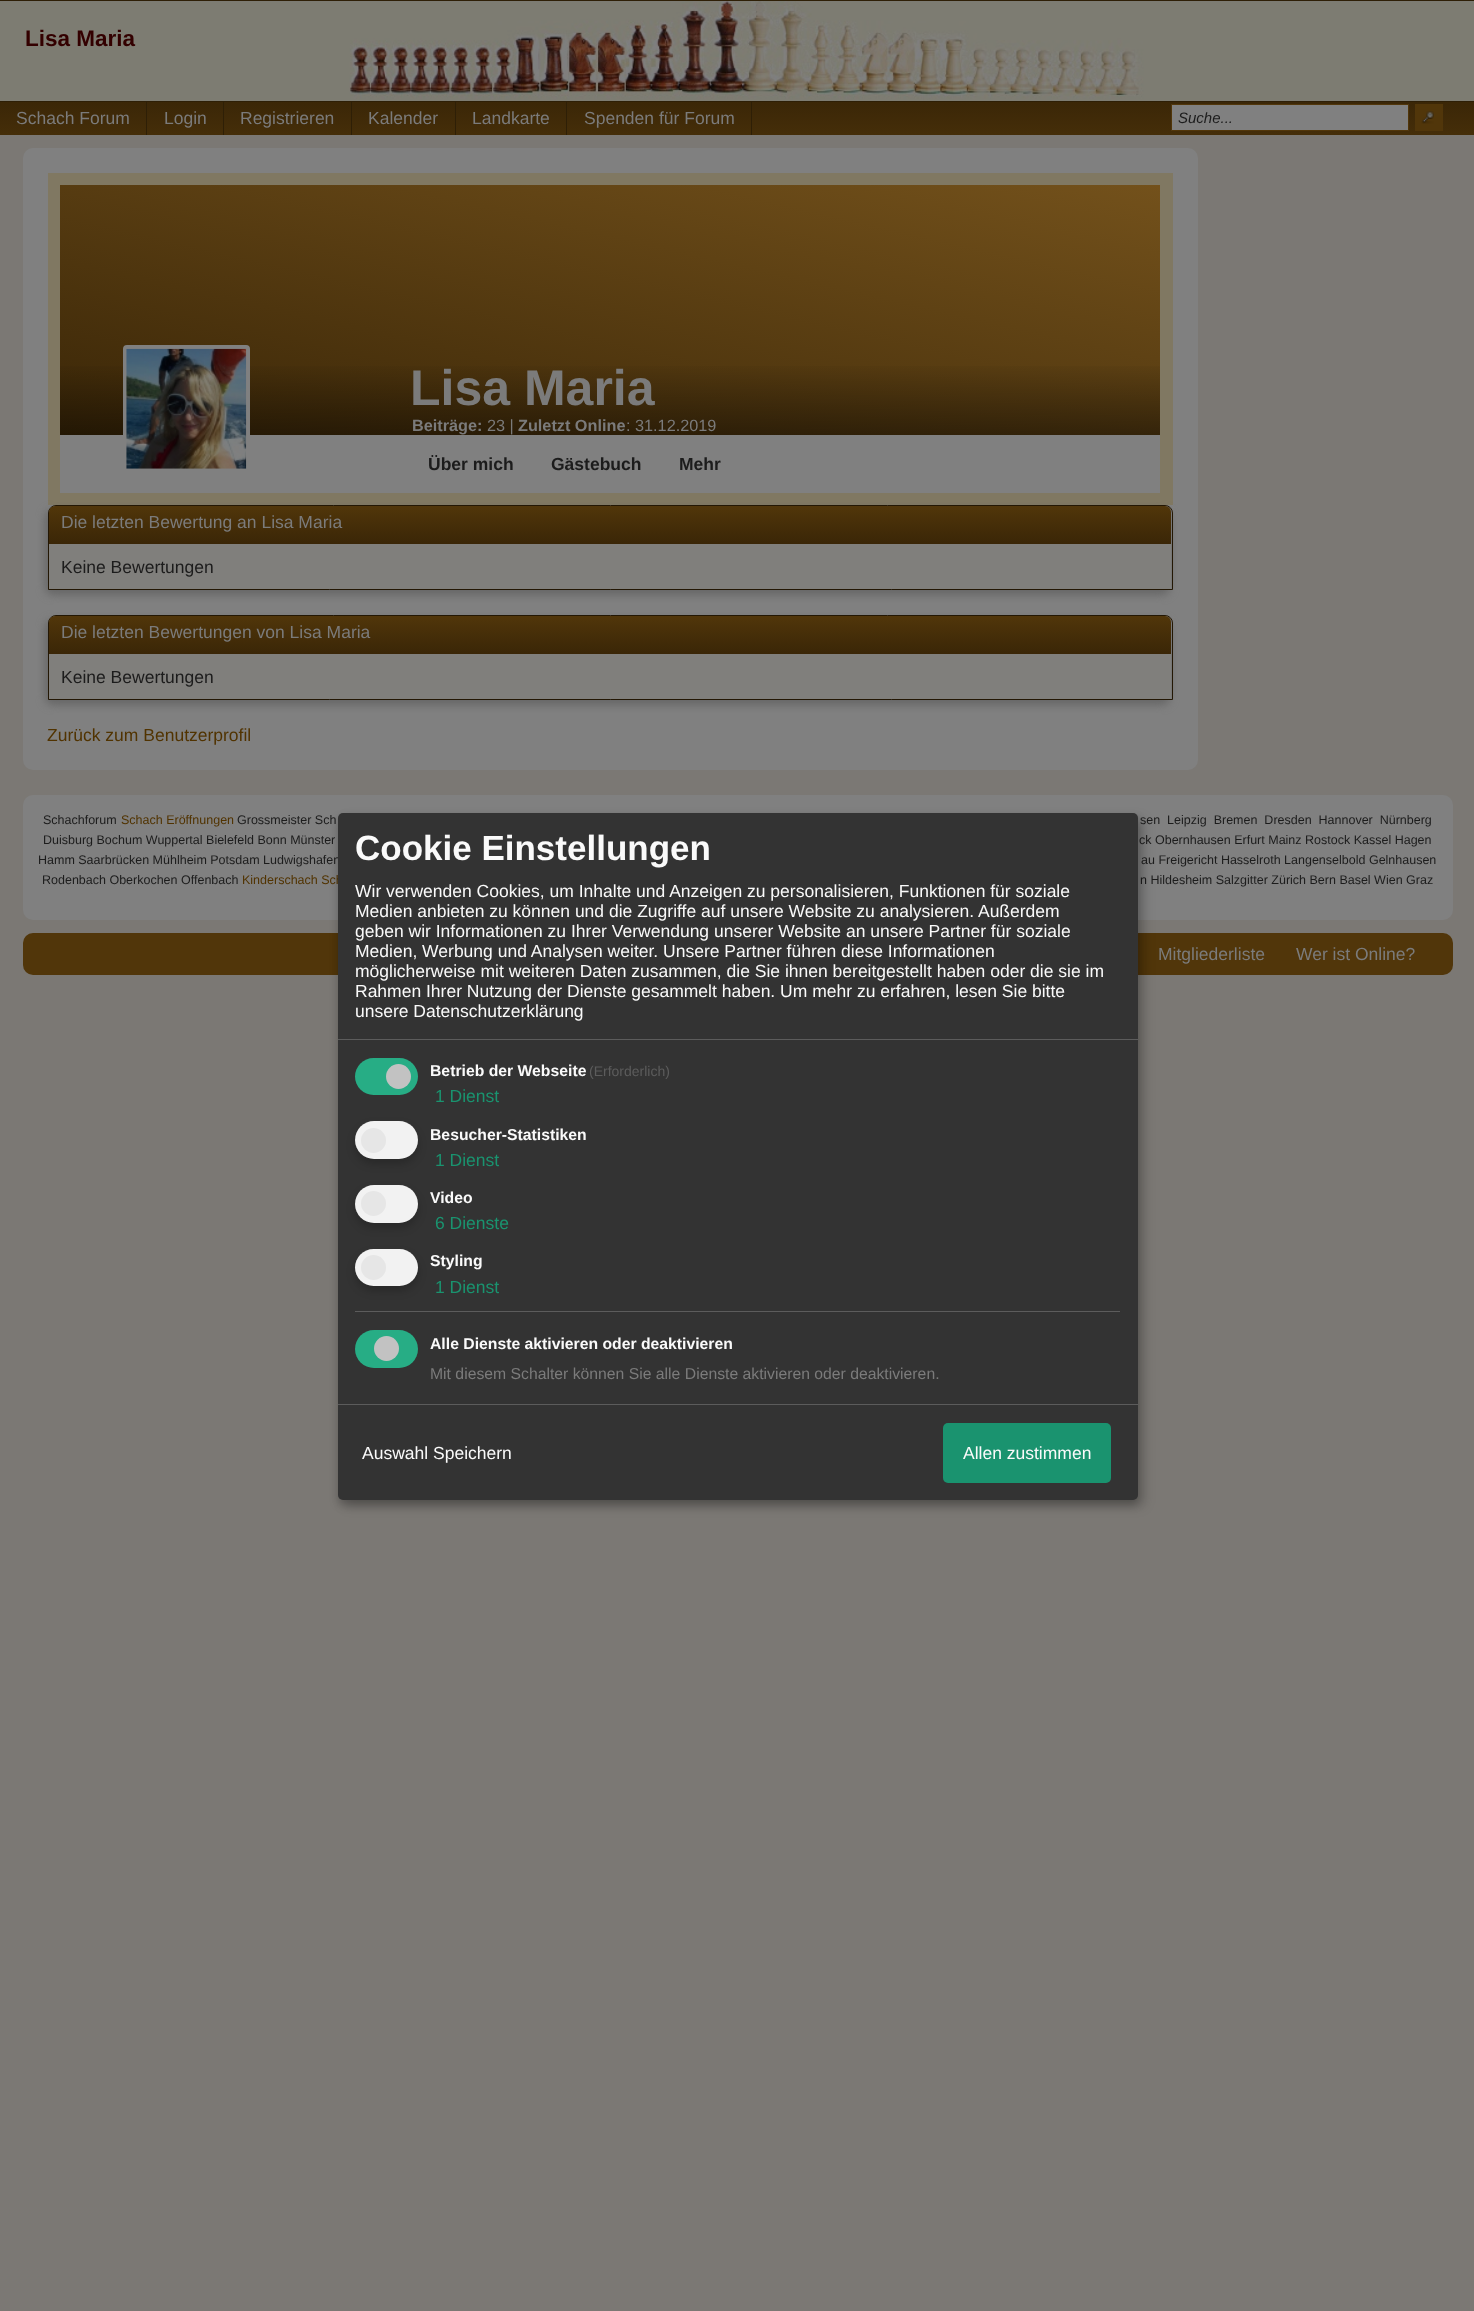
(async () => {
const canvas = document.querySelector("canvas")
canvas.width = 1474
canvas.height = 2311
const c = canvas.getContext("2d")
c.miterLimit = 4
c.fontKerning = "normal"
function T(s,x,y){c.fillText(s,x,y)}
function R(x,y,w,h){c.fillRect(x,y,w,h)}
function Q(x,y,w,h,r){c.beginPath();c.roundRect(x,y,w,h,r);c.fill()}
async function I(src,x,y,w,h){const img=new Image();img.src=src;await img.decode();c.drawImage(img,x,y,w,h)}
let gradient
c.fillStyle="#7b7874"
R(0,0,1474,2311)
c.fillStyle="#2e1f06"
R(0,0,1474,1)
await I("1.png",0,1,1474,100)
c.font="bold 22.5px Liberation Sans"
c.fillStyle="#300"
T("Lisa Maria",25,46)
gradient = c.createLinearGradient(0,101,0,135)
gradient.addColorStop(0,"#3a2607")
gradient.addColorStop(1,"#452e09")
c.fillStyle = gradient
R(0,102,1474,33)
c.fillStyle="#2e1f06"
R(0,101,1474,1)
c.font="17.5px Liberation Sans"
c.fillStyle="#7b7b7b"
T("Schach Forum",16,124)
c.fillStyle="#2e1f06"
R(146,101,1,34)
c.fillStyle="#7b7b7b"
T("Login",164,124)
c.fillStyle="#2e1f06"
R(223,101,1,34)
c.fillStyle="#7b7b7b"
T("Registrieren",240,124)
c.fillStyle="#2e1f06"
R(351,101,1,34)
c.fillStyle="#7b7b7b"
T("Kalender",368,124)
c.fillStyle="#2e1f06"
R(455,101,1,34)
c.fillStyle="#7b7b7b"
T("Landkarte",472,124)
c.fillStyle="#2e1f06"
R(751,101,1,34)
R(566,101,1,34)
c.fillStyle="#7b7b7b"
T("Spenden für Forum",584,124)
c.fillStyle="#808080"
c.beginPath()
c.rect(1171.5,104.5,237,26)
c.fill()
c.strokeStyle="#51360a"
c.stroke()
c.font="italic 15px Liberation Sans"
c.fillStyle="#1c1c1c"
T("Suche...",1178,123)
c.fillStyle="#51360a"
R(1415,104,28,27)
await I("2.png",1421,111,13,13)
c.fillStyle="#808080"
Q(23,148,1175,622,10)
c.strokeStyle="#807862"
c.lineWidth=13
c.strokeRect(54.5,179.5,1112,319)
gradient = c.createLinearGradient(556,548,664,72)
gradient.addColorStop(0,"#3a2607")
gradient.addColorStop(1,"#73511b")
c.fillStyle = gradient
R(60,185,1100,250)
gradient = c.createLinearGradient(610,435,610,360)
gradient.addColorStop(0,"#00000066")
gradient.addColorStop(1,"#00000000")
c.fillStyle = gradient
R(60,366,1100,69)
c.font="bold 50px Liberation Sans"
c.fillStyle="#7b7b7b"
T("Lisa Maria",410,405)
c.font="bold 16.25px Liberation Sans"
T("Beiträge:",412,431)
c.font="16.25px Liberation Sans"
T("23 |",487,431)
c.font="bold 16.25px Liberation Sans"
T("Zuletzt Online",518,431)
c.font="16.25px Liberation Sans"
T(": 31.12.2019",626,431)
c.fillStyle="#808080"
R(60,435,1100,58)
c.beginPath()
c.roundRect(125,347,123,124,2)
c.strokeStyle="#808080"
c.lineWidth=4
c.stroke()
await I("3.png",126,348,121,121)
c.font="bold 17.5px Liberation Sans"
c.fillStyle="#1c1c1c"
T("Über mich",428,470)
T("Gästebuch",551,470)
T("Mehr",679,470)
c.fillStyle="#666"
c.filter="blur(4px)"
c.beginPath()
c.roundRect(45,510,1125,85,8)
c.fill()
c.filter="none"
c.beginPath()
c.roundRect(48.5,505.5,1124,84,[7.5,7.5,0,0])
c.strokeStyle="#231704"
c.lineWidth=1
c.stroke()
gradient = c.createLinearGradient(49,506,49,544)
gradient.addColorStop(0,"#51360a")
gradient.addColorStop(1,"#3a2607")
c.fillStyle = gradient
c.beginPath()
c.roundRect(49,506,1122,38,[6,6,0,0])
c.fill()
c.font="17.5px Liberation Sans"
c.fillStyle="#7b7b7b"
T("Die letzten Bewertung an Lisa Maria",61,528)
c.fillStyle="#807f7c"
R(49,544,1122,45)
c.fillStyle="#1c1c1c"
T("Keine Bewertungen",61,573)
c.fillStyle="#666"
c.filter="blur(4px)"
c.beginPath()
c.roundRect(45,620,1125,85,8)
c.fill()
c.filter="none"
c.beginPath()
c.roundRect(48.5,615.5,1124,84,[7.5,7.5,0,0])
c.stroke()
gradient = c.createLinearGradient(49,616,49,654)
gradient.addColorStop(0,"#51360a")
gradient.addColorStop(1,"#3a2607")
c.fillStyle = gradient
c.beginPath()
c.roundRect(49,616,1122,38,[6,6,0,0])
c.fill()
c.fillStyle="#7b7b7b"
T("Die letzten Bewertungen von Lisa Maria",61,638)
c.fillStyle="#807f7c"
R(49,654,1122,45)
c.fillStyle="#1c1c1c"
T("Keine Bewertungen",61,683)
c.fillStyle="#513300"
T("Zurück zum Benutzerprofil",47,741)
c.fillStyle="#808080"
Q(23,795,1430,125,10)
c.font="12.5px Liberation Sans"
c.fillStyle="#1c1c1c"
T("Schachforum",43,824)
c.fillStyle="#513300"
T("Schach Eröffnungen",121,824)
c.fillStyle="#1c1c1c"
T("Grossmeister Sch",237,824)
T("sen  Leipzig  Bremen  Dresden  Hannover  Nürnberg",1140,824)
T("Duisburg Bochum Wuppertal Bielefeld Bonn Münster",43,844)
T("ck Obernhausen Erfurt Mainz Rostock Kassel Hagen",1139,844)
T("Hamm Saarbrücken Mühlheim Potsdam Ludwigshafen",38,864)
T("au Freigericht Hasselroth Langenselbold Gelnhausen",1141,864)
T("Rodenbach Oberkochen Offenbach",42,884)
c.fillStyle="#513300"
T("Kinderschach Sch",242,884)
c.fillStyle="#1c1c1c"
T("n Hildesheim Salzgitter Zürich Bern Basel Wien Graz",1140,884)
c.fillStyle="#51360a"
Q(23,933,1430,42,10)
c.fillStyle="#00000030"
c.filter="blur(6px)"
c.beginPath()
c.roundRect(344,819,800,687,5)
c.fill()
c.filter="none"
c.fillStyle="#00000033"
c.filter="blur(4px)"
c.beginPath()
c.roundRect(338,818,800,687,5)
c.fill()
c.filter="none"
c.fillStyle="#333"
Q(338,813,800,687,5)
c.fillStyle="#5c5c5c"
R(338,1039,800,1)
c.font="bold 35px Liberation Sans"
c.fillStyle="#fafafa"
T("Cookie Einstellungen",355,860)
c.font="17.5px Liberation Sans"
T("Wir verwenden Cookies, um Inhalte und Anzeigen zu personalisieren, Funktionen für soziale",355,897)
T("Medien anbieten zu können und die Zugriffe auf unsere Website zu analysieren. Außerdem",355,917)
T("geben wir Informationen zu Ihrer Verwendung unserer Website an unsere Partner für soziale",355,937)
T("Medien, Werbung und Analysen weiter. Unsere Partner führen diese Informationen",355,957)
T("möglicherweise mit weiteren Daten zusammen, die Sie ihnen bereitgestellt haben oder die sie im",355,977)
T("Rahmen Ihrer Nutzung der Dienste gesammelt haben. Um mehr zu erfahren, lesen Sie bitte",355,997)
T("unsere Datenschutzerklärung",355,1017)
c.fillStyle="#27ad85"
Q(355,1058,63,37,18.5)
c.fillStyle="#c2c2c2"
c.beginPath()
c.arc(398.5,1076.5,12.5,0,7)
c.fill()
c.font="bold 15.75px Liberation Sans"
c.fillStyle="#fafafa"
T("Betrieb der Webseite",430,1076)
c.font="14px Liberation Sans"
c.fillStyle="#5c5c5c"
T("(Erforderlich)",589,1076)
c.font="17.5px Liberation Sans"
c.fillStyle="#1a936f"
T("1 Dienst",435,1102)
c.fillStyle="#00000033"
c.filter="blur(4px)"
c.beginPath()
c.roundRect(355,1126,63,38,19)
c.fill()
c.filter="none"
c.fillStyle="#f2f2f2"
Q(355,1121,63,38,19)
c.fillStyle="#e6e6e6"
c.beginPath()
c.arc(373.5,1140.5,12.5,0,7)
c.fill()
c.font="bold 15.75px Liberation Sans"
c.fillStyle="#fafafa"
T("Besucher-Statistiken",430,1140)
c.font="17.5px Liberation Sans"
c.fillStyle="#1a936f"
T("1 Dienst",435,1166)
c.fillStyle="#00000033"
c.filter="blur(4px)"
c.beginPath()
c.roundRect(355,1190,63,38,19)
c.fill()
c.filter="none"
c.fillStyle="#f2f2f2"
Q(355,1185,63,38,19)
c.fillStyle="#e6e6e6"
c.beginPath()
c.arc(373.5,1203.5,12.5,0,7)
c.fill()
c.font="bold 15.75px Liberation Sans"
c.fillStyle="#fafafa"
T("Video",430,1203)
c.font="17.5px Liberation Sans"
c.fillStyle="#1a936f"
T("6 Dienste",435,1229)
c.fillStyle="#00000033"
c.filter="blur(4px)"
c.beginPath()
c.roundRect(355,1254,63,37,18.5)
c.fill()
c.filter="none"
c.fillStyle="#f2f2f2"
Q(355,1249,63,37,18.5)
c.fillStyle="#e6e6e6"
c.beginPath()
c.arc(373.5,1267.5,12.5,0,7)
c.fill()
c.font="bold 15.75px Liberation Sans"
c.fillStyle="#fafafa"
T("Styling",430,1266)
c.font="17.5px Liberation Sans"
c.fillStyle="#1a936f"
T("1 Dienst",435,1293)
c.fillStyle="#5c5c5c"
R(355,1311,765,1)
c.fillStyle="#27ad85"
Q(355,1330,63,38,19)
c.fillStyle="#c2c2c2"
c.beginPath()
c.arc(386.5,1348.5,12.5,0,7)
c.fill()
c.font="bold 15.75px Liberation Sans"
c.fillStyle="#fafafa"
T("Alle Dienste aktivieren oder deaktivieren",430,1349)
c.font="15.75px Liberation Sans"
c.fillStyle="#7b7b7b"
T("Mit diesem Schalter können Sie alle Dienste aktivieren oder deaktivieren.",430,1379)
c.fillStyle="#5c5c5c"
R(338,1404,800,1)
c.font="17.5px Liberation Sans"
c.fillStyle="#fafafa"
T("Auswahl Speichern",362,1459)
c.fillStyle="#1a936f"
Q(943,1423,168,60,5)
c.fillStyle="#fafafa"
T("Allen zustimmen",963,1459)
c.fillStyle="#7b7b7b"
T("Mitgliederliste",1158,960)
T("Wer ist Online?",1296,960)
})()
